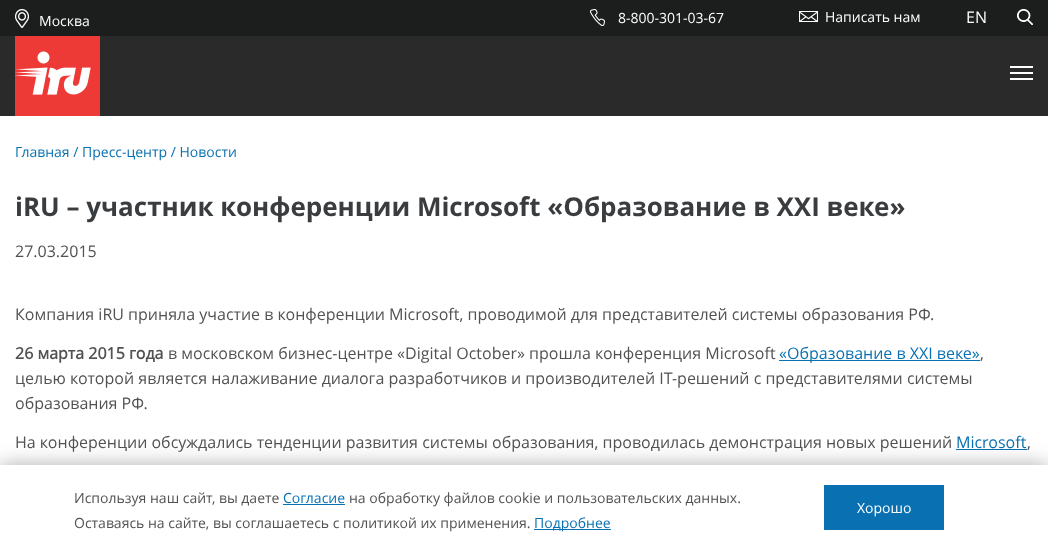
(async () => {
const canvas = document.querySelector("canvas")
canvas.width = 1048
canvas.height = 555
const c = canvas.getContext("2d")
c.miterLimit = 4
c.fontKerning = "normal"
function T(s,x,y){c.fillText(s,x,y)}
function R(x,y,w,h){c.fillRect(x,y,w,h)}
async function I(src,x,y,w,h){const img=new Image();img.src=src;await img.decode();c.drawImage(img,x,y,w,h)}
c.fillStyle="#fff"
R(0,0,1048,555)
c.fillStyle="#2a2a2a"
R(0,36,1048,80)
c.fillStyle="#1c1d1d"
R(0,0,1048,36)
await I("1.png",15,9,14,19)
c.font="14px Open Sans"
c.fillStyle="#fff"
T("Москва",39,26)
await I("2.png",590,9,15,17)
T("8-800-301-03-67",618,23)
await I("3.png",799,11,19,11)
T("Написать нам",825,22)
c.font="16px Open Sans"
T("EN",966,23)
await I("4.png",1017,9,16,16)
c.fillStyle="#ed3a37"
R(15,36,85,80)
await I("5.png",14,51,77,44)
c.fillStyle="#fff"
R(1010,66,23,2)
R(1010,72,23,2)
R(1010,78,23,2)
c.font="14px Open Sans"
c.fillStyle="#0971b2"
T("Главная / Пресс-центр / Новости",15,157)
c.font="bold 26px Open Sans"
c.fillStyle="#3a3d3f"
T("iRU – участник конференции Microsoft «Образование в XXI веке»",15,216)
c.font="16px Open Sans"
c.fillStyle="#525252"
T("27.03.2015",15,257)
T("Компания iRU приняла участие в конференции Microsoft, проводимой для представителей системы образования РФ.",15,320)
c.font="bold 16px 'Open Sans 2'"
T("26 марта 2015 года",15,359)
c.font="16px Open Sans"
T("в московском бизнес-центре «Digital October» прошла конференция Microsoft",168,359)
c.fillStyle="#0971b2"
R(779,360,201,1)
T("«Образование в XXI веке»",779,359)
c.fillStyle="#525252"
T(",",980,359)
T("целью которой является налаживание диалога разработчиков и производителей IT-решений с представителями системы",15,384)
T("образования РФ.",15,409)
T("На конференции обсуждались тенденции развития системы образования, проводилась демонстрация новых решений",15,448)
c.fillStyle="#0971b2"
T("Microsoft",956,448)
R(956,449,71,1)
c.fillStyle="#525252"
T(",",1027,448)
c.fillStyle="#32323269"
c.filter="blur(10px)"
c.beginPath()
c.rect(0,465,1048,90)
c.fill()
c.filter="none"
c.fillStyle="#fff"
R(0,465,1048,90)
c.font="14px Open Sans"
c.fillStyle="#525252"
T("Используя наш сайт, вы даете",74,503)
c.fillStyle="#0971b2"
T("Согласие",283,503)
R(283,504,62,1)
c.fillStyle="#525252"
T("на обработку файлов cookie и пользовательских данных.",349,503)
T("Оставаясь на сайте, вы соглашаетесь с политикой их применения.",74,528)
c.fillStyle="#0971b2"
R(534,529,77,1)
T("Подробнее",534,528)
R(824,485,120,45)
c.fillStyle="#fff"
T("Хорошо",857,513)
})()
